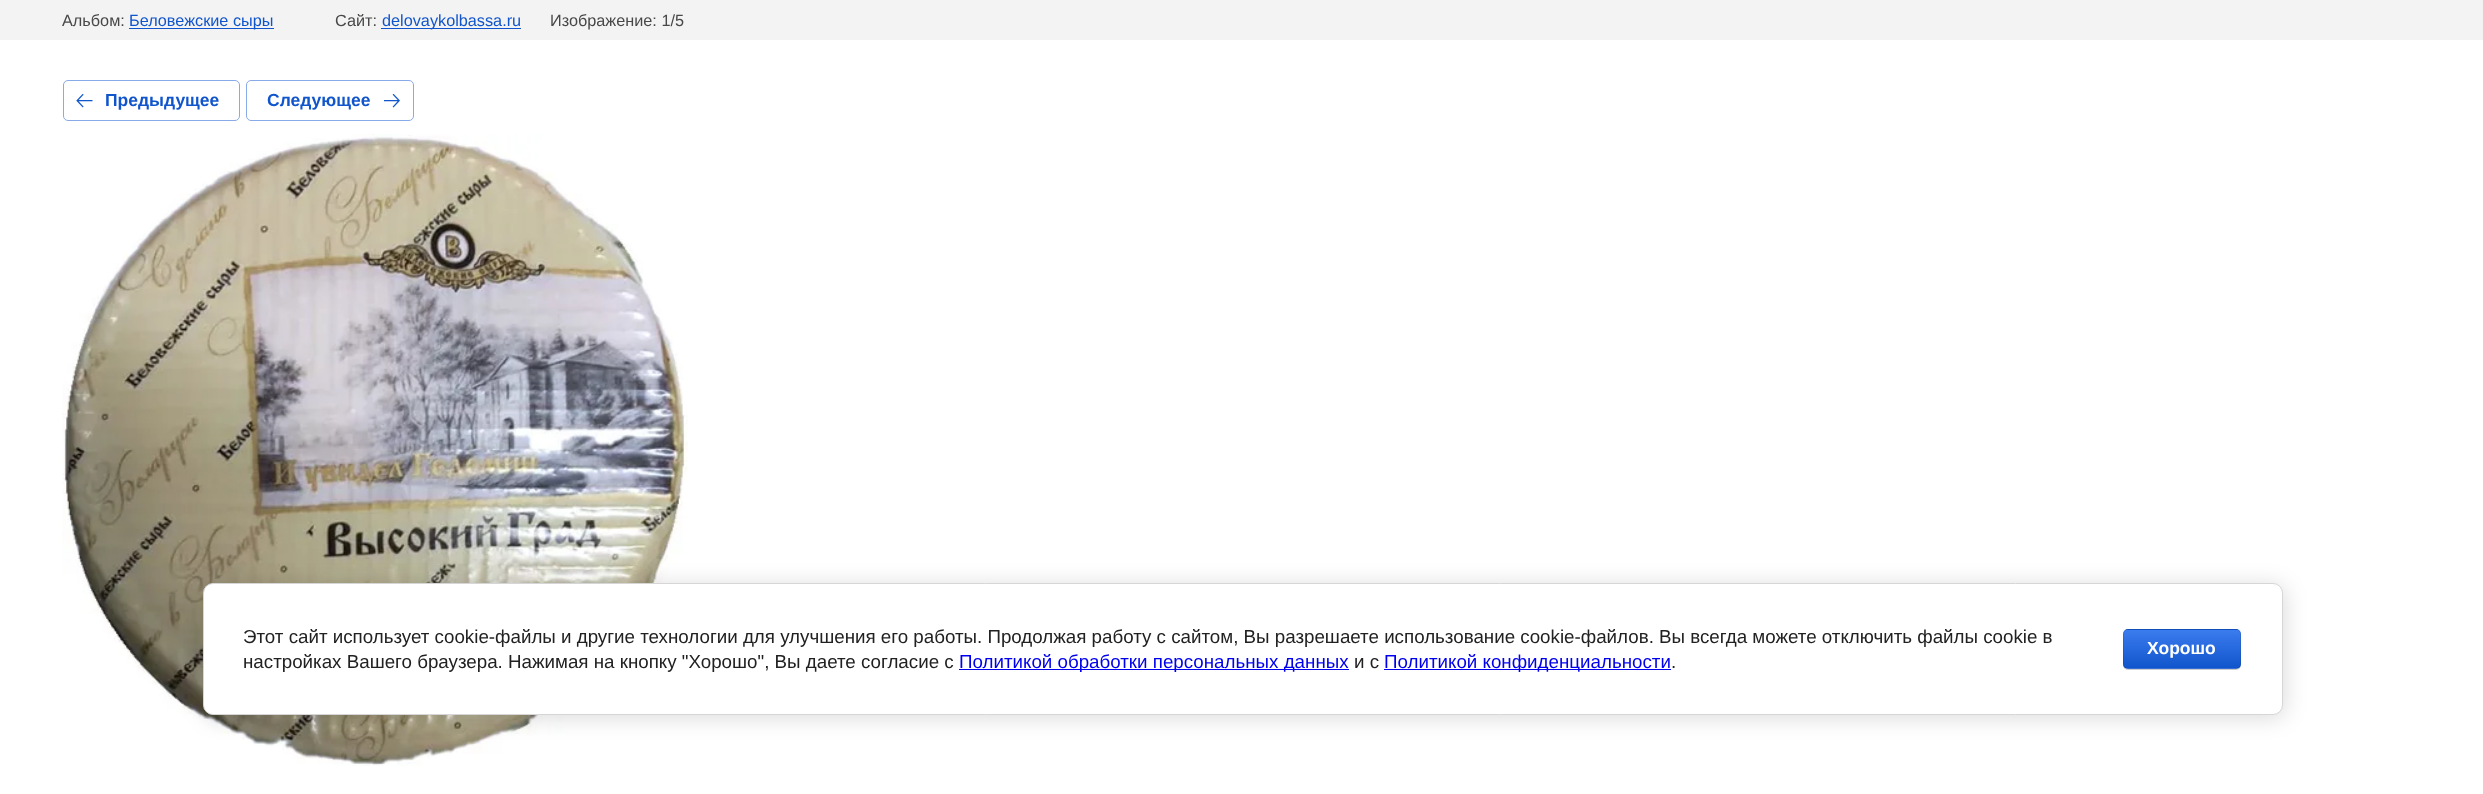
(async () => {
const canvas = document.querySelector("canvas")
canvas.width = 2483
canvas.height = 794
const c = canvas.getContext("2d")
c.miterLimit = 4
c.fontKerning = "normal"
function T(s,x,y){c.fillText(s,x,y)}
function R(x,y,w,h){c.fillRect(x,y,w,h)}
async function I(src,x,y,w,h){const img=new Image();img.src=src;await img.decode();c.drawImage(img,x,y,w,h)}
let gradient
c.fillStyle="#fff"
R(0,0,2483,794)
c.fillStyle="#f3f3f3"
R(0,0,2483,40)
c.font="16.25px Liberation Sans"
c.fillStyle="#484848"
T("Альбом:",62,26)
c.fillStyle="#15c"
R(129,28,145,1)
T("Беловежские сыры",129,26)
c.fillStyle="#484848"
T("Сайт:",335,26)
c.fillStyle="#15c"
R(381,28,140,1)
T("delovaykolbassa.ru",382,26)
c.fillStyle="#484848"
T("Изображение: 1/5",550,26)
c.beginPath()
c.roundRect(63.5,80.5,176,40,4.5)
c.strokeStyle="#88aae6"
c.stroke()
await I("1.png",76,94,17,14)
c.font="bold 17.5px Liberation Sans"
c.fillStyle="#15c"
T("Предыдущее",105,106)
c.beginPath()
c.roundRect(246.5,80.5,167,40,4.5)
c.stroke()
T("Следующее",267,106)
await I("2.png",384,94,16,14)
await I("3.png",62,134,626,632)
c.fillStyle="#00000024"
c.filter="blur(11px)"
c.beginPath()
c.roundRect(205,585,2080,133,10)
c.fill()
c.filter="none"
c.fillStyle="#fff"
c.beginPath()
c.roundRect(203.5,583.5,2079,131,9.5)
c.fill()
c.strokeStyle="#d6d6d6"
c.stroke()
c.font="18.75px Liberation Sans"
c.fillStyle="#212121"
T("Этот сайт использует cookie-файлы и другие технологии для улучшения его работы. Продолжая работу с сайтом, Вы разрешаете использование cookie-файлов. Вы всегда можете отключить файлы cookie в",243,643)
T("настройках Вашего браузера. Нажимая на кнопку \"Хорошо\", Вы даете согласие с",243,668)
c.fillStyle="#00e"
R(959,669,390,1)
T("Политикой обработки персональных данных",959,668)
c.fillStyle="#212121"
T("и с",1354,668)
c.fillStyle="#00e"
R(1384,669,287,1)
T("Политикой конфиденциальности",1384,668)
c.fillStyle="#212121"
T(".",1671,668)
c.fillStyle="#00000033"
c.filter="blur(0.5px)"
c.beginPath()
c.roundRect(2123,630,118,40,5)
c.fill()
c.filter="none"
c.save()
c.beginPath()
c.roundRect(2123,629,118,40,5)
c.clip()
gradient = c.createLinearGradient(2182,593,2182,630)
gradient.addColorStop(0,"#3b7cef")
gradient.addColorStop(1,"#15c")
c.fillStyle = gradient
R(2123,629,118,1)
gradient = c.createLinearGradient(2182,630,2182,668)
gradient.addColorStop(0,"#3b7cef")
gradient.addColorStop(1,"#15c")
c.fillStyle = gradient
R(2123,630,118,38)
gradient = c.createLinearGradient(2182,668,2182,705)
gradient.addColorStop(0,"#3b7cef")
gradient.addColorStop(1,"#15c")
c.fillStyle = gradient
R(2123,668,118,1)
c.restore()
c.beginPath()
c.roundRect(2123.5,629.5,117,39,4.5)
c.strokeStyle="#0000001a"
c.stroke()
c.font="bold 17.5px Liberation Sans"
c.fillStyle="#fff"
T("Хорошо",2147,654)
})()
